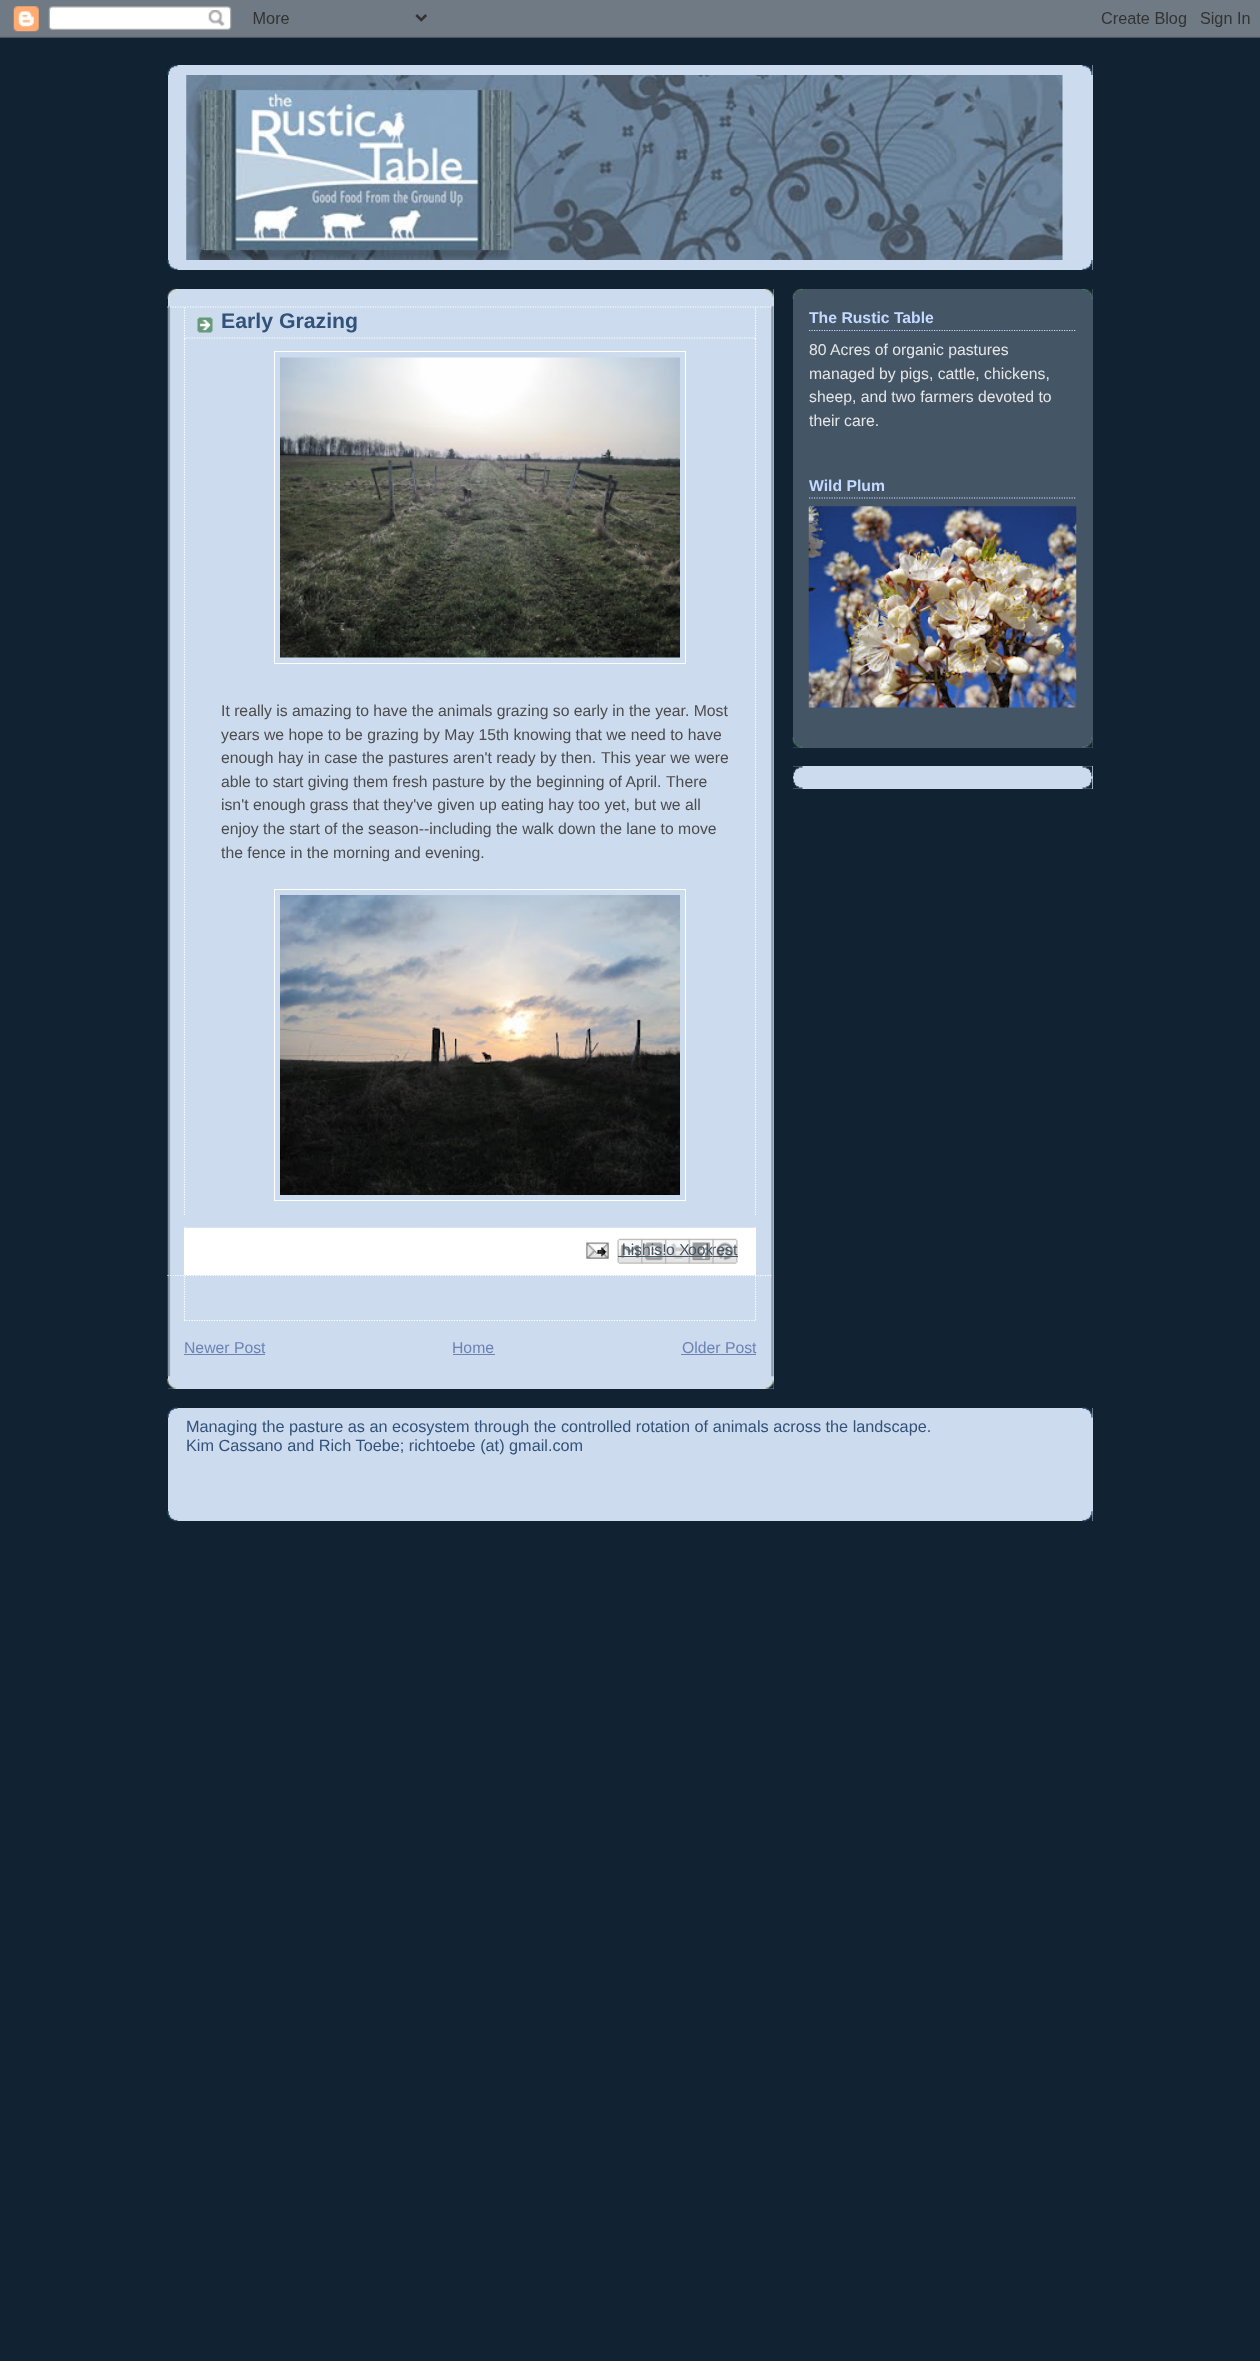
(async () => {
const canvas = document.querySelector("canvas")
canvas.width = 1260
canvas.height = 2361
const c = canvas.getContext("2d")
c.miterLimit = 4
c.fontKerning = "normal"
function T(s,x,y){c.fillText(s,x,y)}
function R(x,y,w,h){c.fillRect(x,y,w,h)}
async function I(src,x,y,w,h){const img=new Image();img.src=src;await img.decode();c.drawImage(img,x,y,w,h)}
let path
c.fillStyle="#123"
R(0,0,1260,2361)
await I("1.png",0,0,1260,38)
c.fillStyle="#ccdbee"
R(168,65,925,205)
await I("2.png",167,65,926,10)
await I("3.png",167,260,926,10)
await I("4.png",186,75,877,185)
R(168,289,606,1100)
await I("5.png",167,1378,607,11)
await I("6.png",167,288,607,11)
await I("7.png",167,306,607,1071)
path = new Path2D("M167.5 307h605")
c.strokeStyle="#fff"
c.lineWidth=1.2
c.setLineDash([1.25,1.25])
c.stroke(path)
path = new Path2D("M167.5 1275.5h605")
c.stroke(path)
await I("8.png",197,317,16,16)
path = new Path2D("M755.5 307.5v31.5")
c.stroke(path)
path = new Path2D("M184 338h572")
c.stroke(path)
path = new Path2D("M184.5 307.5v31.5")
c.stroke(path)
c.font="bold 21.25px Liberation Sans"
c.fillStyle="#32527a"
T("Early Grazing",221,328)
path = new Path2D("M755.5 339v876")
c.stroke(path)
path = new Path2D("M184.5 339v876")
c.stroke(path)
c.lineWidth=1
c.setLineDash([])
c.strokeRect(274.5,351.5,411,312)
await I("9.png",280,357,400,301)
c.font="15.75px Liberation Sans"
c.fillStyle="#4c4c4c"
T("It really is amazing to have the animals grazing so early in the year. Most",221,716)
T("years we hope to be grazing by May 15th knowing that we need to have",221,740)
T("enough hay in case the pastures aren't ready by then.",221,763)
T("This year we were",601,763)
T("able to start giving them fresh pasture by the beginning of April.",221,787)
T("There",666,787)
T("isn't enough grass that they've given up eating hay too yet, but we all",221,810)
T("enjoy the start of the season--including the walk down the lane to move",221,834)
T("the fence in the morning and evening.",221,858)
c.strokeRect(274.5,889.5,411,311)
await I("10.png",280,895,400,300)
c.fillStyle="#fff"
R(184,1228,572,47)
path = new Path2D("M184 1228h572")
c.lineWidth=1.2
c.setLineDash([1.25,1.25])
c.stroke(path)
path = new Path2D("M755.5 1227.5v47.5")
c.stroke(path)
path = new Path2D("M184.5 1227.5v47.5")
c.stroke(path)
await I("11.png",586,1242,23,17)
await I("12.png",617,1238,26,26)
c.fillStyle="#456"
T("his",622,1255)
R(618,1256,25,1)
await I("13.png",641,1238,26,26)
T("his!",642,1255)
R(641,1256,25,1)
await I("14.png",665,1238,25,26)
T("o X",666,1255)
R(665,1256,25,1)
await I("15.png",688,1238,26,26)
T("ook",688,1255)
R(689,1256,25,1)
await I("16.png",712,1238,26,26)
c.save()
c.beginPath()
c.rect(713,1239,25,25)
c.clip()
T("rest",711,1255)
c.restore()
R(713,1256,25,1)
path = new Path2D("M755.5 1276v45")
c.stroke(path)
path = new Path2D("M184 1320.5h572")
c.stroke(path)
path = new Path2D("M184.5 1276v45")
c.stroke(path)
c.fillStyle="#6c82b5"
T("Newer Post",184,1353)
R(184,1354,81,1)
T("Home",452,1353)
R(453,1354,42,1)
T("Older Post",682,1353)
R(681,1354,75,1)
c.fillStyle="#456"
R(793,289,300,459)
await I("17.png",792,737,301,11)
await I("18.png",792,288,301,11)
path = new Path2D("M809 330.5h267")
c.strokeStyle="#c3d9ff"
c.stroke(path)
c.font="bold 15.75px Liberation Sans"
c.fillStyle="#c3d9ff"
T("The Rustic Table",809,323)
c.font="15.75px Liberation Sans"
c.fillStyle="#e6e6e6"
T("80 Acres of organic pastures",809,355)
T("managed by pigs, cattle, chickens,",809,379)
T("sheep, and two farmers devoted to",809,402)
T("their care.",809,426)
path = new Path2D("M809 498h267")
c.stroke(path)
c.font="bold 15.75px Liberation Sans"
c.fillStyle="#c3d9ff"
T("Wild Plum",809,491)
await I("19.png",808,506,269,202)
c.fillStyle="#ccdbee"
R(793,766,300,23)
await I("20.png",793,766,300,11)
await I("21.png",793,778,300,11)
R(168,1408,925,113)
await I("22.png",167,1407,926,11)
await I("23.png",167,1511,926,11)
c.font="16.25px Liberation Sans"
c.fillStyle="#32527a"
T("Managing the pasture as an ecosystem through the controlled rotation of animals across the landscape.",186,1432)
T("Kim Cassano and Rich Toebe; richtoebe (at) gmail.com",186,1451)
})()
